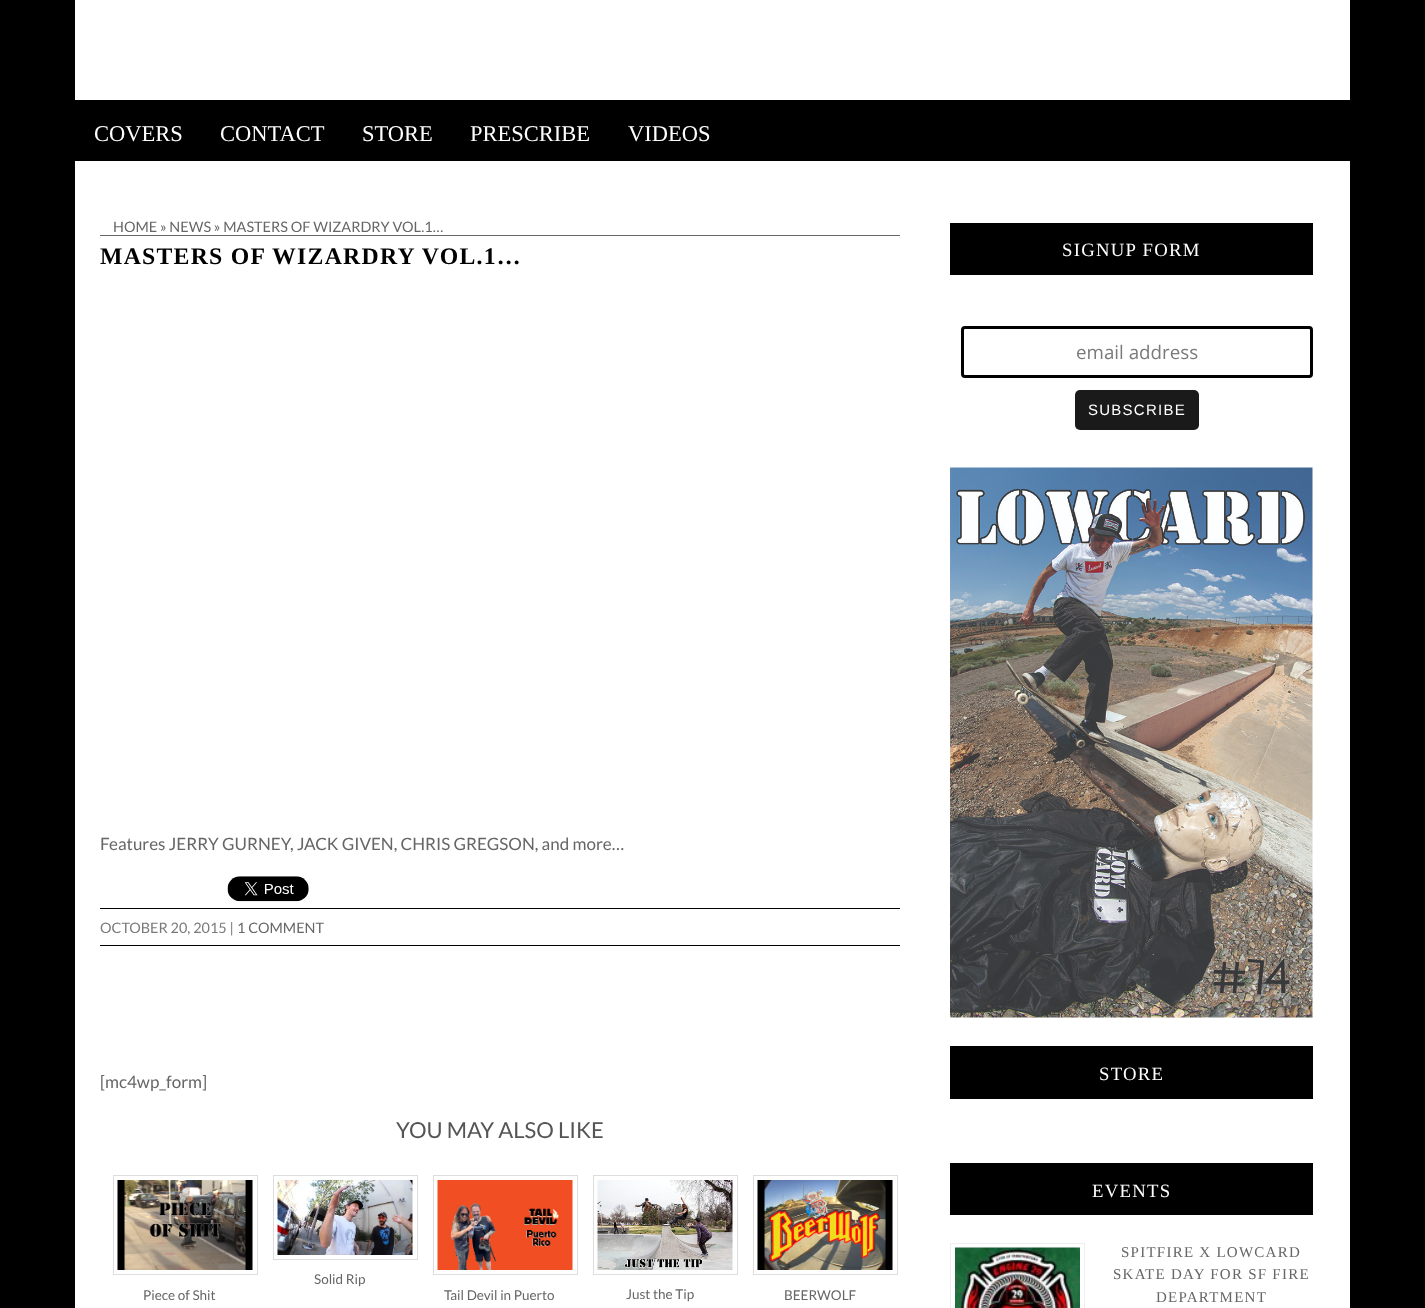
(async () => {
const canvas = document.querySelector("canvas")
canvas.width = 1425
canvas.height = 1308
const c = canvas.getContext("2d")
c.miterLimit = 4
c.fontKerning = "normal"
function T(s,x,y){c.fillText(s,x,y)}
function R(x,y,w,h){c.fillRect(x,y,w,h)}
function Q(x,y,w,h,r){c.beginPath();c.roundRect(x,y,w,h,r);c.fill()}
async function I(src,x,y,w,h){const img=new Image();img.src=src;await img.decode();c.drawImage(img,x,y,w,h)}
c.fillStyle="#000"
R(0,0,1425,1308)
c.fillStyle="#fff"
R(75,0,1275,1308)
c.fillStyle="#000"
R(75,100,1275,61)
c.font="22.5px Liberation Serif"
c.fillStyle="#fff"
T("COVERS",94,141)
T("CONTACT",220,141)
T("STORE",362,141)
T("PRESCRIBE",470,141)
T("VIDEOS",628,141)
c.font="14.45px Lato"
c.fillStyle="#666"
T("HOME » NEWS » MASTERS OF WIZARDRY VOL.1…",113,232)
R(100,235,800,1)
c.letterSpacing="1.25px"
c.font="bold 23.75px Liberation Serif"
c.fillStyle="#000"
T("MASTERS OF WIZARDRY VOL.1…",100,264)
c.letterSpacing="0px"
c.font="17px Lato"
c.fillStyle="#666"
T("Features JERRY GURNEY, JACK GIVEN, CHRIS GREGSON, and more…",100,850)
await I("1.png",227,876,82,26)
c.fillStyle="#000"
R(100,908,800,1)
R(100,945,800,1)
c.font="14.45px Lato"
c.fillStyle="#7a7a7a"
T("OCTOBER 20, 2015 |",100,933)
c.fillStyle="#666"
T("1 COMMENT",237,933)
c.font="17px Lato"
T("[mc4wp_form]",100,1088)
c.font="22px Lato"
c.fillStyle="#555"
T("YOU MAY ALSO LIKE",396,1138)
c.strokeStyle="#ddd"
c.strokeRect(273.5,1175.5,144,84)
await I("2.png",277,1180,136,75)
c.font="13.5px Lato"
c.fillStyle="#666"
T("Solid Rip",314,1284)
c.strokeRect(113.5,1175.5,144,99)
await I("3.png",117,1180,136,90)
T("Piece of Shit",143,1300)
c.strokeRect(433.5,1175.5,144,99)
await I("4.png",437,1180,136,90)
T("Tail Devil in Puerto",444,1300)
c.strokeRect(593.5,1175.5,144,99)
await I("5.png",597,1180,136,90)
T("Just the Tip",626,1299)
c.strokeRect(753.5,1175.5,144,99)
await I("6.png",757,1180,136,90)
T("BEERWOLF",784,1300)
c.fillStyle="#000"
R(950,223,363,52)
c.letterSpacing="1.25px"
c.font="18.75px Liberation Serif"
c.fillStyle="#fff"
T("SIGNUP FORM",1062,256)
c.beginPath()
c.roundRect(962.5,327.5,349,49,2.5)
c.strokeStyle="#000"
c.lineWidth=3
c.stroke()
c.letterSpacing="0px"
c.font="18.75px Open Sans"
c.fillStyle="#7a7a7a"
T("email address",1076,359)
c.fillStyle="#1a1a1a"
Q(1075,390,124,40,5)
c.letterSpacing="1.25px"
c.font="15px Liberation Sans"
c.fillStyle="#fff"
T("SUBSCRIBE",1088,415)
await I("7.png",950,467,363,551)
c.fillStyle="#000"
R(950,1046,363,53)
c.font="18.75px Liberation Serif"
c.fillStyle="#fff"
T("STORE",1099,1080)
c.fillStyle="#000"
R(950,1163,363,52)
c.fillStyle="#fff"
T("EVENTS",1092,1197)
c.strokeStyle="#eee"
c.lineWidth=1
c.strokeRect(950.5,1243.5,134,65)
await I("8.png",955,1247,125,61)
c.font="15px Liberation Serif"
c.fillStyle="#666"
T("SPITFIRE X LOWCARD",1121,1257)
T("SKATE DAY FOR SF FIRE",1113,1279)
T("DEPARTMENT",1156,1302)
})()
